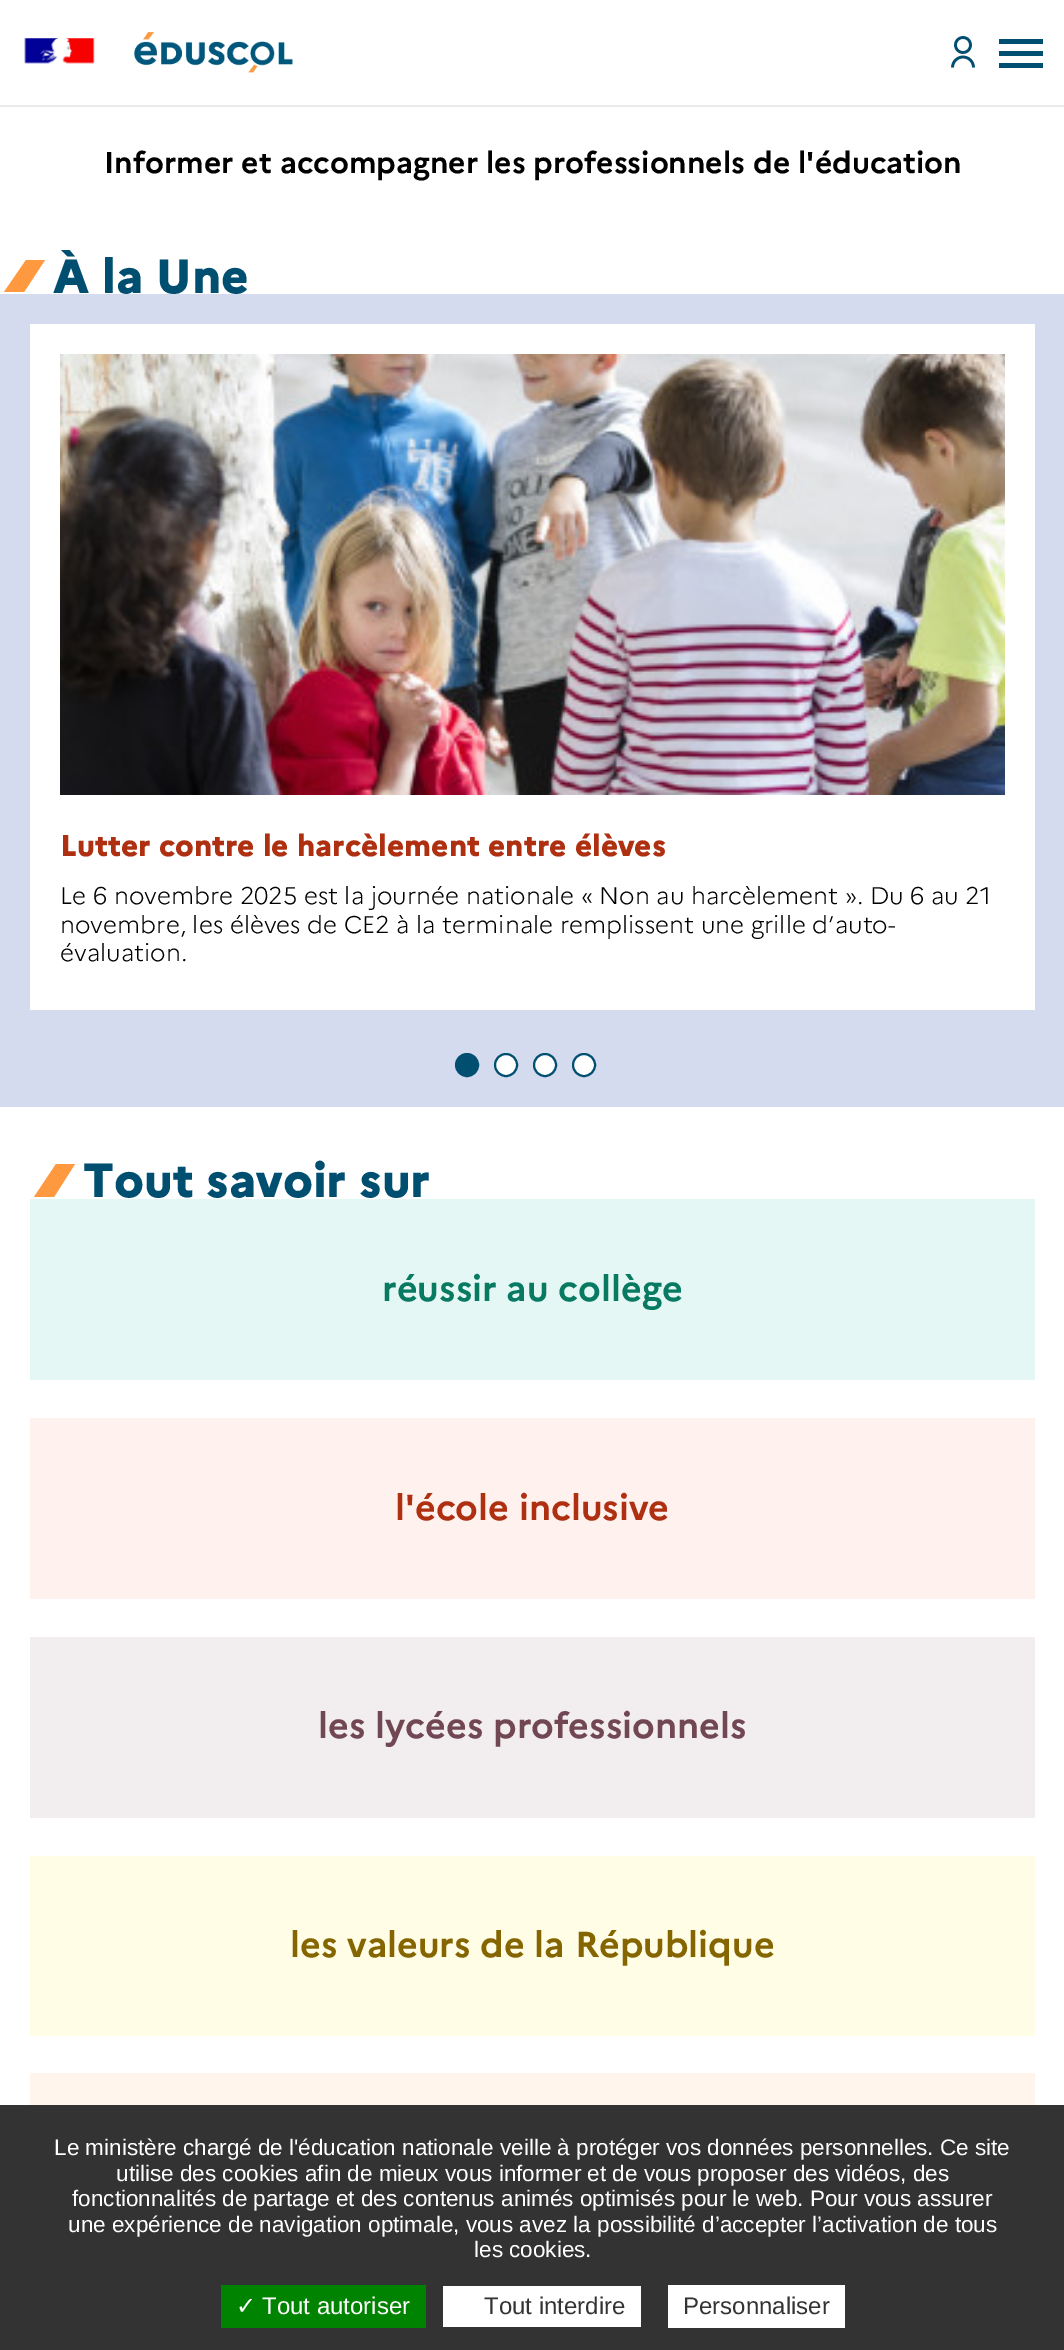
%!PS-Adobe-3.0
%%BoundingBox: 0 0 1064 2350
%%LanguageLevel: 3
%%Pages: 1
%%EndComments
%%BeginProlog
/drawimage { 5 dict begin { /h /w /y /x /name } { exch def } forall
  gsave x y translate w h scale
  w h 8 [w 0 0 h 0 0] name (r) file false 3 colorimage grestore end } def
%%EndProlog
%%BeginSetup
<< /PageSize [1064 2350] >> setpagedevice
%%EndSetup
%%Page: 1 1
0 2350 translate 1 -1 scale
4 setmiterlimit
1 setgray
0 0 1064 2350 rectfill
0.918 setgray
0 105 1064 2 rectfill
(images/1.raw) 24 38 71 26 drawimage
(images/2.raw) 134 31 159 42 drawimage
(images/3.raw) 951 36 24 32 drawimage
0 0.306 0.439 setrgbcolor
999 51 44 5 rectfill
999 39 44 5 rectfill
999 63 44 5 rectfill
1 0.6 0.251 setrgbcolor
newpath 26 260 moveto 45 260 lineto 24 292 lineto 4 292 lineto closepath fill
0.835 0.859 0.937 setrgbcolor
0 294 1064 813 rectfill
1 setgray
30 324 1005 686 rectfill
(images/4.raw) 60 354 945 441 drawimage
0 0.306 0.439 setrgbcolor
newpath 467 1065 11 0 360 arc closepath gsave fill grestore
2 setlinewidth
stroke
1 setgray
newpath 506 1065 11 0 360 arc closepath gsave fill grestore
0 0.306 0.439 setrgbcolor
stroke
1 setgray
newpath 545 1065 11 0 360 arc closepath gsave fill grestore
0 0.306 0.439 setrgbcolor
stroke
1 setgray
newpath 584 1065 11 0 360 arc closepath gsave fill grestore
0 0.306 0.439 setrgbcolor
stroke
1 0.6 0.251 setrgbcolor
newpath 56 1164 moveto 75 1164 lineto 54 1197 lineto 34 1197 lineto closepath fill
0.898 0.969 0.957 setrgbcolor
30 1199 1005 181 rectfill
1 0.945 0.929 setrgbcolor
30 1418 1005 181 rectfill
0.949 0.929 0.937 setrgbcolor
30 1637 1005 181 rectfill
1 0.992 0.898 setrgbcolor
30 1856 1005 180 rectfill
1 0.961 0.925 setrgbcolor
30 2073 1005 32 rectfill
0.2 setgray
0 2105 1064 245 rectfill
0 0.514 0 setrgbcolor
221 2285 205 43 rectfill
1 setgray
443 2286 198 41 rectfill
668 2285 177 43 rectfill
/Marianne-Bold [30 0 0 -30 0 0] selectfont
0 setgray
104 173 moveto (Informer et accompagner les professionnels de l'éducation) show
/Marianne-ExtraBold [48 0 0 -48 0 0] selectfont
0 0.306 0.439 setrgbcolor
53 293 moveto (À la Une) show
/Marianne-ExtraBold [30 0 0 -30 0 0] selectfont
0.686 0.184 0.067 setrgbcolor
60 856 moveto (Lutter contre le harcèlement entre élèves) show
/Marianne-Light [24 0 0 -24 0 0] selectfont
0 setgray
60 904 moveto (Le 6 novembre 2025 est la journée nationale « Non au harcèlement ». Du 6 au 21) show
60 933 moveto (novembre, les élèves de CE2 à la terminale remplissent une grille d’auto-) show
60 961 moveto (évaluation.) show
/Marianne-ExtraBold [48 0 0 -48 0 0] selectfont
0 0.306 0.439 setrgbcolor
83 1197 moveto (Tout savoir sur) show
/Marianne-Bold [36 0 0 -36 0 0] selectfont
0.031 0.478 0.384 setrgbcolor
382 1301 moveto (réussir au collège) show
0.686 0.184 0.067 setrgbcolor
395 1520 moveto (l'école inclusive) show
0.443 0.278 0.325 setrgbcolor
318 1738 moveto (les lycées professionnels) show
0.518 0.396 0 setrgbcolor
290 1957 moveto (les valeurs de la République) show
/LiberationSans-Regular [22.5 0 0 -22.5 0 0] selectfont
1 setgray
54 2155 moveto (Le ministère chargé de l'éducation nationale veille à protéger vos données personnelles. Ce site) show
116 2181 moveto (utilise des cookies afin de mieux vous informer et de vous proposer des vidéos, des) show
72 2206 moveto (fonctionnalités de partage et des contenus animés optimisés pour le web. Pour vous assurer) show
68 2232 moveto (une expérience de navigation optimale, vous avez la possibilité d’accepter l’activation de tous) show
474 2257 moveto (les cookies.) show
/DejaVuSans-Regular [24 0 0 -24 0 0] selectfont
236 2314 moveto (✓) show
/LiberationSans-Regular [24 0 0 -24 0 0] selectfont
262 2314 moveto (Tout autoriser) show
0.2 setgray
484 2314 moveto (Tout interdire) show
683 2314 moveto (Personnaliser) show
showpage
%%EOF
